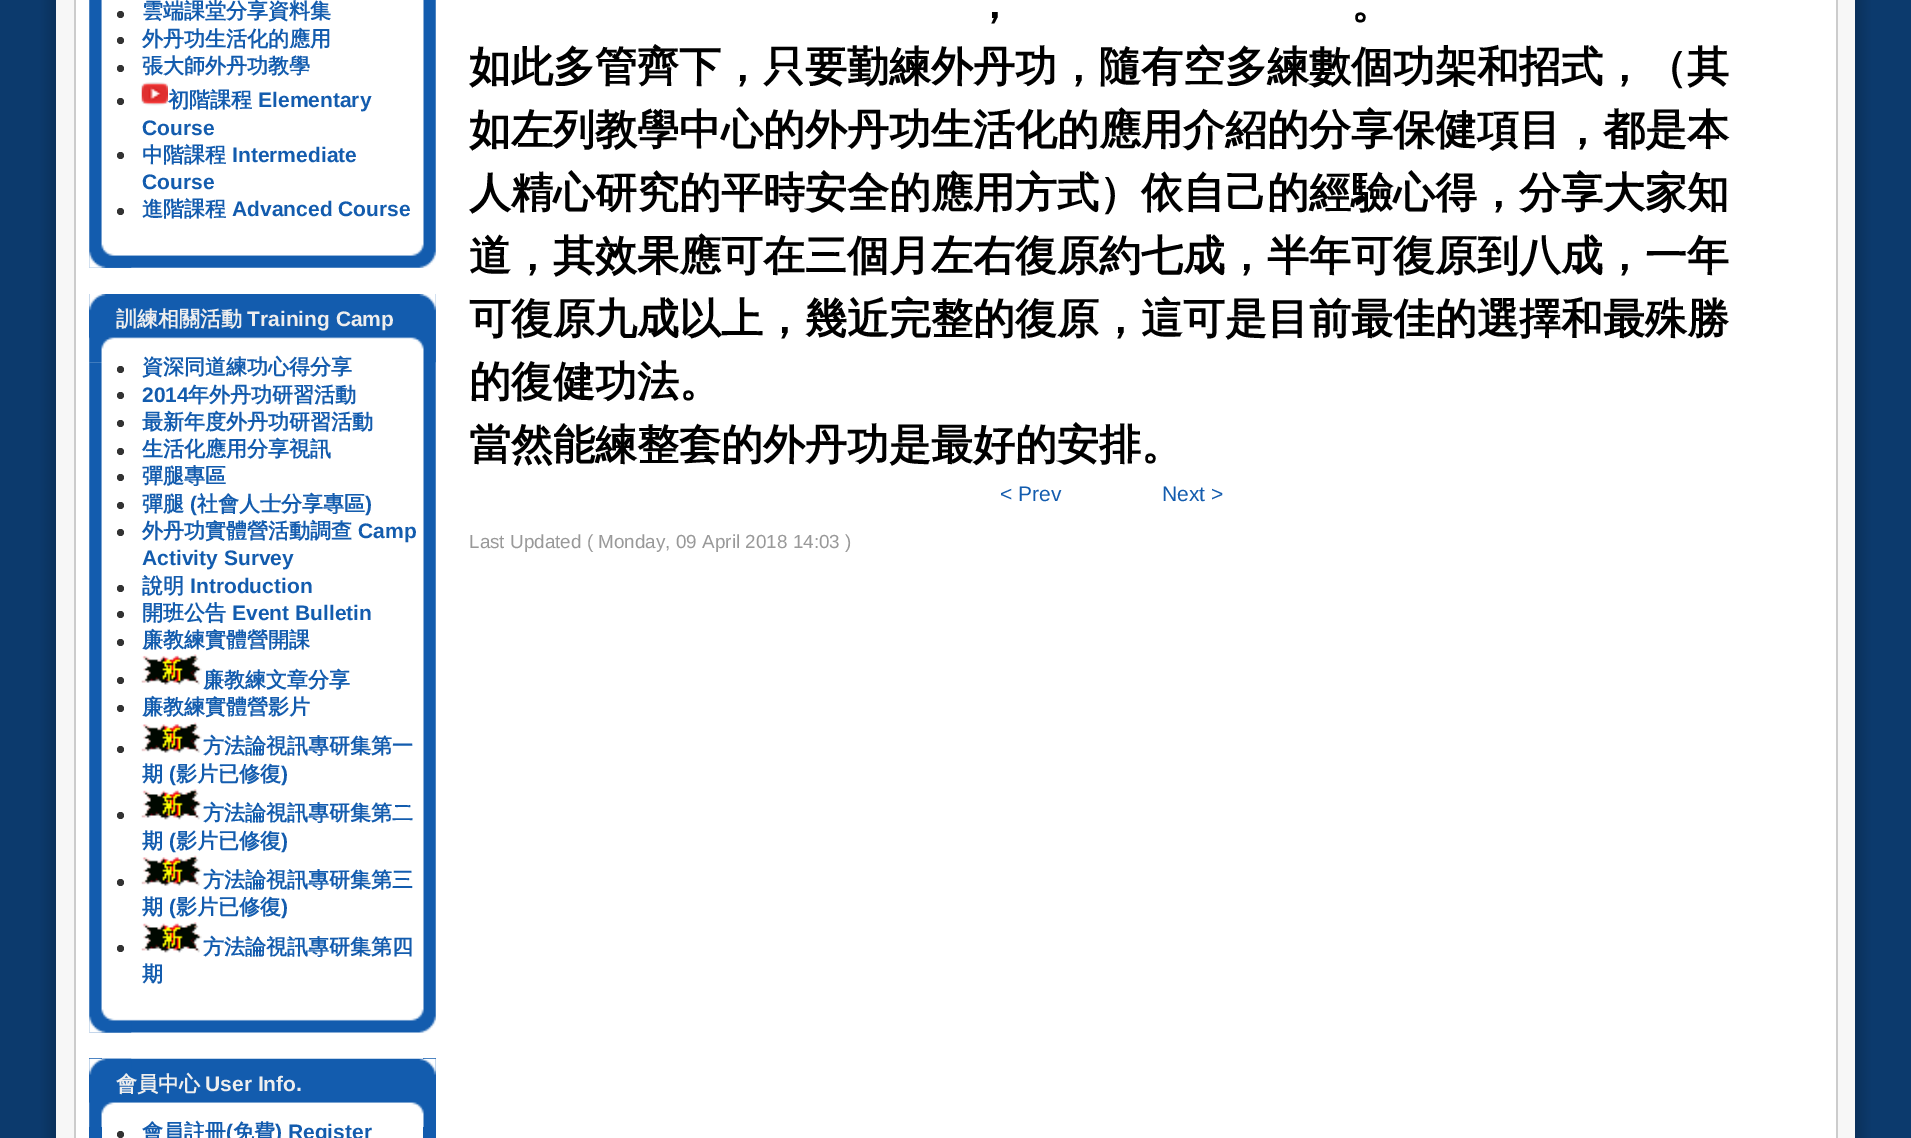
%!PS-Adobe-3.0
%%BoundingBox: 0 0 1911 1138
%%LanguageLevel: 3
%%Pages: 1
%%EndComments
%%BeginProlog
/drawimage { 5 dict begin { /h /w /y /x /name } { exch def } forall
  gsave x y translate w h scale
  w h 8 [w 0 0 h 0 0] name (r) file false 3 colorimage grestore end } def
%%EndProlog
%%BeginSetup
<< /PageSize [1911 1138] >> setpagedevice
%%EndSetup
%%Page: 1 1
0 1138 translate 1 -1 scale
4 setmiterlimit
0.047 0.227 0.427 setrgbcolor
0 0 1911 1138 rectfill
0.969 setgray
56 0 1799 1138 rectfill
(images/1.raw) 37 0 19 1138 drawimage
(images/2.raw) 1855 0 19 1138 drawimage
1 setgray
76 0 1760 1138 rectfill
0.8 setgray
1836 0 2 1138 rectfill
74 0 2 1138 rectfill
(images/3.raw) 89 0 347 268 drawimage
(images/4.raw) 89 0 43 268 drawimage
0.2 setgray
newpath 120.5 14.5 3.5 0 360 arc closepath fill
newpath 120.5 40.5 3.5 0 360 arc closepath fill
newpath 120.5 68.5 3.5 0 360 arc closepath fill
newpath 120.5 101.5 3.5 0 360 arc closepath fill
(images/5.raw) 141 82 27 24 drawimage
newpath 120.5 155.5 3.5 0 360 arc closepath fill
newpath 120.5 211.5 3.5 0 360 arc closepath fill
(images/6.raw) 89 294 347 739 drawimage
(images/7.raw) 89 294 43 739 drawimage
(images/8.raw) 89 294 347 69 drawimage
(images/9.raw) 89 294 25 69 drawimage
newpath 120.5 369.5 3.5 0 360 arc closepath fill
newpath 120.5 395.5 3.5 0 360 arc closepath fill
newpath 120.5 423.5 3.5 0 360 arc closepath fill
newpath 120.5 451.5 3.5 0 360 arc closepath fill
newpath 120.5 477.5 3.5 0 360 arc closepath fill
newpath 120.5 505.5 3.5 0 360 arc closepath fill
newpath 120.5 532.5 3.5 0 360 arc closepath fill
newpath 120.5 588.5 3.5 0 360 arc closepath fill
newpath 120.5 614.5 3.5 0 360 arc closepath fill
newpath 120.5 642.5 3.5 0 360 arc closepath fill
newpath 120.5 680.5 3.5 0 360 arc closepath fill
(images/10.raw) 141 654 61 31 drawimage
newpath 120.5 708.5 3.5 0 360 arc closepath fill
newpath 120.5 749.5 3.5 0 360 arc closepath fill
(images/11.raw) 141 722 61 31 drawimage
newpath 120.5 815.5 3.5 0 360 arc closepath fill
(images/12.raw) 141 789 61 31 drawimage
newpath 120.5 882.5 3.5 0 360 arc closepath fill
(images/11.raw) 141 855 61 31 drawimage
newpath 120.5 948.5 3.5 0 360 arc closepath fill
(images/12.raw) 141 922 61 31 drawimage
0.075 0.361 0.682 setrgbcolor
423 1058 13 80 rectfill
89 1058 13 80 rectfill
(images/13.raw) 89 1058 347 69 drawimage
(images/14.raw) 89 1058 43 69 drawimage
0.2 setgray
newpath 120.5 1134.5 3.5 0 360 arc closepath fill
/WenQuanYiZenHei-Bold [21 0 0 -21 0 0] selectfont
0.075 0.361 0.682 setrgbcolor
142 18 moveto (雲端課堂分享資料集) show
142 46 moveto (外丹功生活化的應用) show
142 73 moveto (張大師外丹功教學) show
168 107 moveto (初階課程) show
/LiberationSans-Bold [21 0 0 -21 0 0] selectfont
258 107 moveto (Elementary) show
142 135 moveto (Course) show
/WenQuanYiZenHei-Bold [21 0 0 -21 0 0] selectfont
142 162 moveto (中階課程) show
/LiberationSans-Bold [21 0 0 -21 0 0] selectfont
232 162 moveto (Intermediate) show
142 189 moveto (Course) show
/WenQuanYiZenHei-Bold [21 0 0 -21 0 0] selectfont
142 216 moveto (進階課程) show
/LiberationSans-Bold [21 0 0 -21 0 0] selectfont
232 216 moveto (Advanced Course) show
/WenQuanYiZenHei-Bold [21 0 0 -21 0 0] selectfont
0.933 setgray
116 326 moveto (訓練相關活動) show
/LiberationSans-Bold [21 0 0 -21 0 0] selectfont
247 326 moveto (Training Camp) show
/WenQuanYiZenHei-Bold [21 0 0 -21 0 0] selectfont
0.075 0.361 0.682 setrgbcolor
142 374 moveto (資深同道練功心得分享) show
/LiberationSans-Bold [21 0 0 -21 0 0] selectfont
142 402 moveto (2014) show
/WenQuanYiZenHei-Bold [21 0 0 -21 0 0] selectfont
188 402 moveto (年外丹功研習活動) show
142 429 moveto (最新年度外丹功研習活動) show
142 456 moveto (生活化應用分享視訊) show
142 483 moveto (彈腿專區) show
142 511 moveto (彈腿) show
/LiberationSans-Bold [21 0 0 -21 0 0] selectfont
190 511 moveto (\() show
/WenQuanYiZenHei-Bold [21 0 0 -21 0 0] selectfont
197 511 moveto (社會人士分享專區) show
/LiberationSans-Bold [21 0 0 -21 0 0] selectfont
365 511 moveto (\)) show
/WenQuanYiZenHei-Bold [21 0 0 -21 0 0] selectfont
142 538 moveto (外丹功實體營活動調查) show
/LiberationSans-Bold [21 0 0 -21 0 0] selectfont
358 538 moveto (Camp) show
142 565 moveto (Activity Survey) show
/WenQuanYiZenHei-Bold [21 0 0 -21 0 0] selectfont
142 593 moveto (說明) show
/LiberationSans-Bold [21 0 0 -21 0 0] selectfont
190 593 moveto (Introduction) show
/WenQuanYiZenHei-Bold [21 0 0 -21 0 0] selectfont
142 620 moveto (開班公告) show
/LiberationSans-Bold [21 0 0 -21 0 0] selectfont
232 620 moveto (Event Bulletin) show
/WenQuanYiZenHei-Bold [21 0 0 -21 0 0] selectfont
142 647 moveto (廉教練實體營開課) show
203 687 moveto (廉教練文章分享) show
142 714 moveto (廉教練實體營影片) show
203 753 moveto (方法論視訊專研集第一) show
142 781 moveto (期) show
/LiberationSans-Bold [21 0 0 -21 0 0] selectfont
169 781 moveto (\() show
/WenQuanYiZenHei-Bold [21 0 0 -21 0 0] selectfont
176 781 moveto (影片已修復) show
/LiberationSans-Bold [21 0 0 -21 0 0] selectfont
281 781 moveto (\)) show
/WenQuanYiZenHei-Bold [21 0 0 -21 0 0] selectfont
203 820 moveto (方法論視訊專研集第二) show
142 848 moveto (期) show
/LiberationSans-Bold [21 0 0 -21 0 0] selectfont
169 848 moveto (\() show
/WenQuanYiZenHei-Bold [21 0 0 -21 0 0] selectfont
176 848 moveto (影片已修復) show
/LiberationSans-Bold [21 0 0 -21 0 0] selectfont
281 848 moveto (\)) show
/WenQuanYiZenHei-Bold [21 0 0 -21 0 0] selectfont
203 887 moveto (方法論視訊專研集第三) show
142 914 moveto (期) show
/LiberationSans-Bold [21 0 0 -21 0 0] selectfont
169 914 moveto (\() show
/WenQuanYiZenHei-Bold [21 0 0 -21 0 0] selectfont
176 914 moveto (影片已修復) show
/LiberationSans-Bold [21 0 0 -21 0 0] selectfont
281 914 moveto (\)) show
/WenQuanYiZenHei-Bold [21 0 0 -21 0 0] selectfont
203 954 moveto (方法論視訊專研集第四) show
142 981 moveto (期) show
0.933 setgray
116 1091 moveto (會員中心) show
/LiberationSans-Bold [21 0 0 -21 0 0] selectfont
205 1091 moveto (User Info.) show
/WenQuanYiZenHei-Bold [21 0 0 -21 0 0] selectfont
0.075 0.361 0.682 setrgbcolor
142 1139 moveto (會員註冊) show
/LiberationSans-Bold [21 0 0 -21 0 0] selectfont
226 1139 moveto (\() show
/WenQuanYiZenHei-Bold [21 0 0 -21 0 0] selectfont
233 1139 moveto (免費) show
/LiberationSans-Bold [21 0 0 -21 0 0] selectfont
275 1139 moveto (\) Register) show
/WenQuanYiZenHei-Bold [42 0 0 -42 0 0] selectfont
0 setgray
973 18 moveto (，) show
1351 18 moveto (。) show
469 81 moveto (如此多管齊下，只要勤練外丹功，隨有空多練數個功架和招式，（其) show
469 144 moveto (如左列教學中心的外丹功生活化的應用介紹的分享保健項目，都是本) show
469 207 moveto (人精心研究的平時安全的應用方式）依自己的經驗心得，分享大家知) show
469 270 moveto (道，其效果應可在三個月左右復原約七成，半年可復原到八成，一年) show
469 333 moveto (可復原九成以上，幾近完整的復原，這可是目前最佳的選擇和最殊勝) show
469 396 moveto (的復健功法。) show
469 459 moveto (當然能練整套的外丹功是最好的安排。) show
/LiberationSans-Regular [21 0 0 -21 0 0] selectfont
0.075 0.361 0.682 setrgbcolor
1000 501 moveto (< Prev) show
1162 501 moveto (Next >) show
/LiberationSans-Regular [18.9 0 0 -18.9 0 0] selectfont
0.6 setgray
469 548 moveto (Last Updated \( Monday, 09 April 2018 14:03 \)) show
showpage
%%EOF
